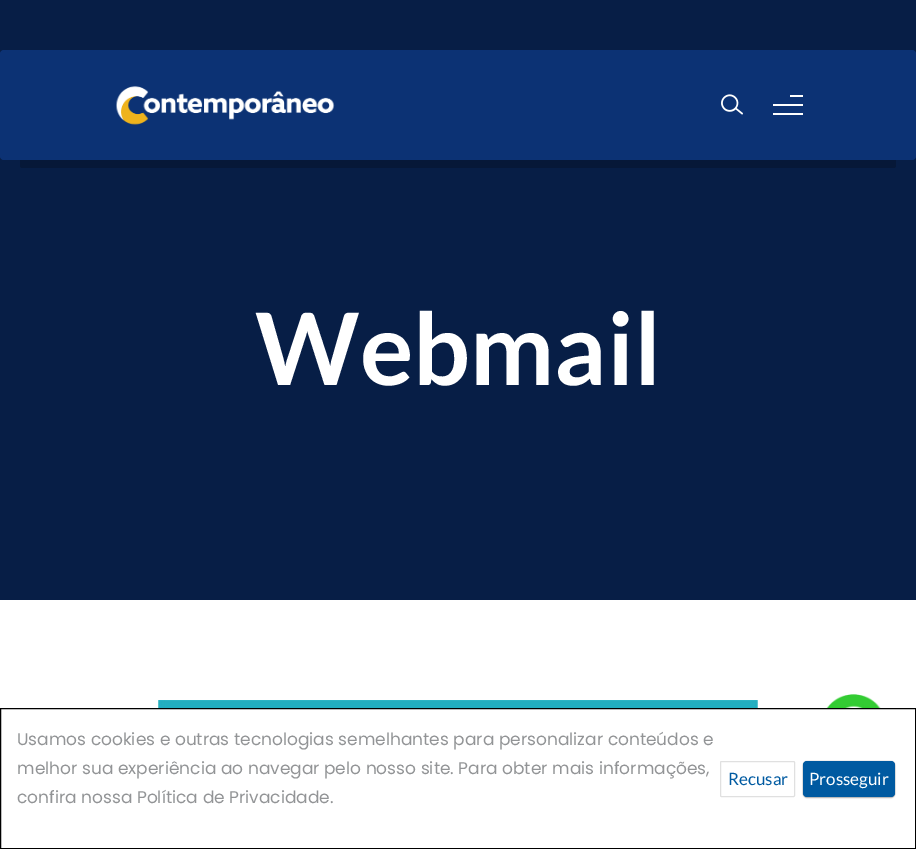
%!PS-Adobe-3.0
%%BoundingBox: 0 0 916 849
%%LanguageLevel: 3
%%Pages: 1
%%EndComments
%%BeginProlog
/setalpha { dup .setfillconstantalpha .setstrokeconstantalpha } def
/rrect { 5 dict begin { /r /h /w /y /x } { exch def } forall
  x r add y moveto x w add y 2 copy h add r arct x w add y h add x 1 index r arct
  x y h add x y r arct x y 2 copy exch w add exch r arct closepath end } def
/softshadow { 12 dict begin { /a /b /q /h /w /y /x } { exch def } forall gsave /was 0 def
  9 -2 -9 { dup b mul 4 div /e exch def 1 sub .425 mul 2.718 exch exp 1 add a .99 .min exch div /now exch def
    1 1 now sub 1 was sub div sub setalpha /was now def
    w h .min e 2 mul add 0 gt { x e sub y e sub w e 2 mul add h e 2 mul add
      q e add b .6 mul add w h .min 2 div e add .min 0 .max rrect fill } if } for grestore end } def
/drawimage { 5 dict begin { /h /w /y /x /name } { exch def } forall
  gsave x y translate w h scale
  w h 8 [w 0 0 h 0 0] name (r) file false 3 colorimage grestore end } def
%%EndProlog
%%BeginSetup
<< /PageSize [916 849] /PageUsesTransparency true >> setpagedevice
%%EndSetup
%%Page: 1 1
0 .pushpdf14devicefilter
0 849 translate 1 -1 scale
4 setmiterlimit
1 setgray
0 0 916 849 rectfill
0.027 0.118 0.275 setrgbcolor
0 0 916 600 rectfill
0.047 0.196 0.455 setrgbcolor
0 50 916 110 4 rrect fill
(images/1.raw) 116 86 219 39 drawimage
(images/2.raw) 721 94 22 21 drawimage
1 setgray
790 95 13 2 rectfill
773 104 30 2 rectfill
773 113 30 2 rectfill
0.024 0.094 0.22 setrgbcolor
newpath 20 160 moveto 896 160 lineto 896 166 lineto 896 167 895 168 894 168 curveto 22 168 lineto 21 168 20 167 20 166 curveto closepath fill
(images/3.raw) 158 700 600 8 drawimage
(images/4.raw) 826 694 55 14 drawimage
0 setgray
0.5 708.5 915 140 rectstroke
0.878 setgray
720.5 761.5 74 35 1 rrect stroke
0 setgray
803 761 92 36 4 0.5 0.1 softshadow
803 761 92 36 4 0.5 0.12 softshadow
803 762 92 36 4 0.5 0.25 softshadow
0 0.353 0.631 setrgbcolor
803 761 92 36 4 rrect fill
/Lato-Bold [100 0 0 -100 0 0] selectfont
1 setgray
255 385 moveto (Webmail) show
/Poppins-Regular [17 0 0 -17 0 0] selectfont
0.573 0.58 0.588 setrgbcolor
17 745 moveto (Usamos cookies e outras tecnologias semelhantes para personalizar conteúdos e) show
17 774 moveto (melhor sua experiência ao navegar pelo nosso site. Para obter mais informações,) show
17 803 moveto (confira nossa Política de Privacidade.) show
/Lato-Regular [17 0 0 -17 0 0] selectfont
0 0.353 0.631 setrgbcolor
728 785 moveto (Recusar) show
1 setgray
809 785 moveto (Prosseguir) show
.poppdf14devicefilter showpage
%%EOF
